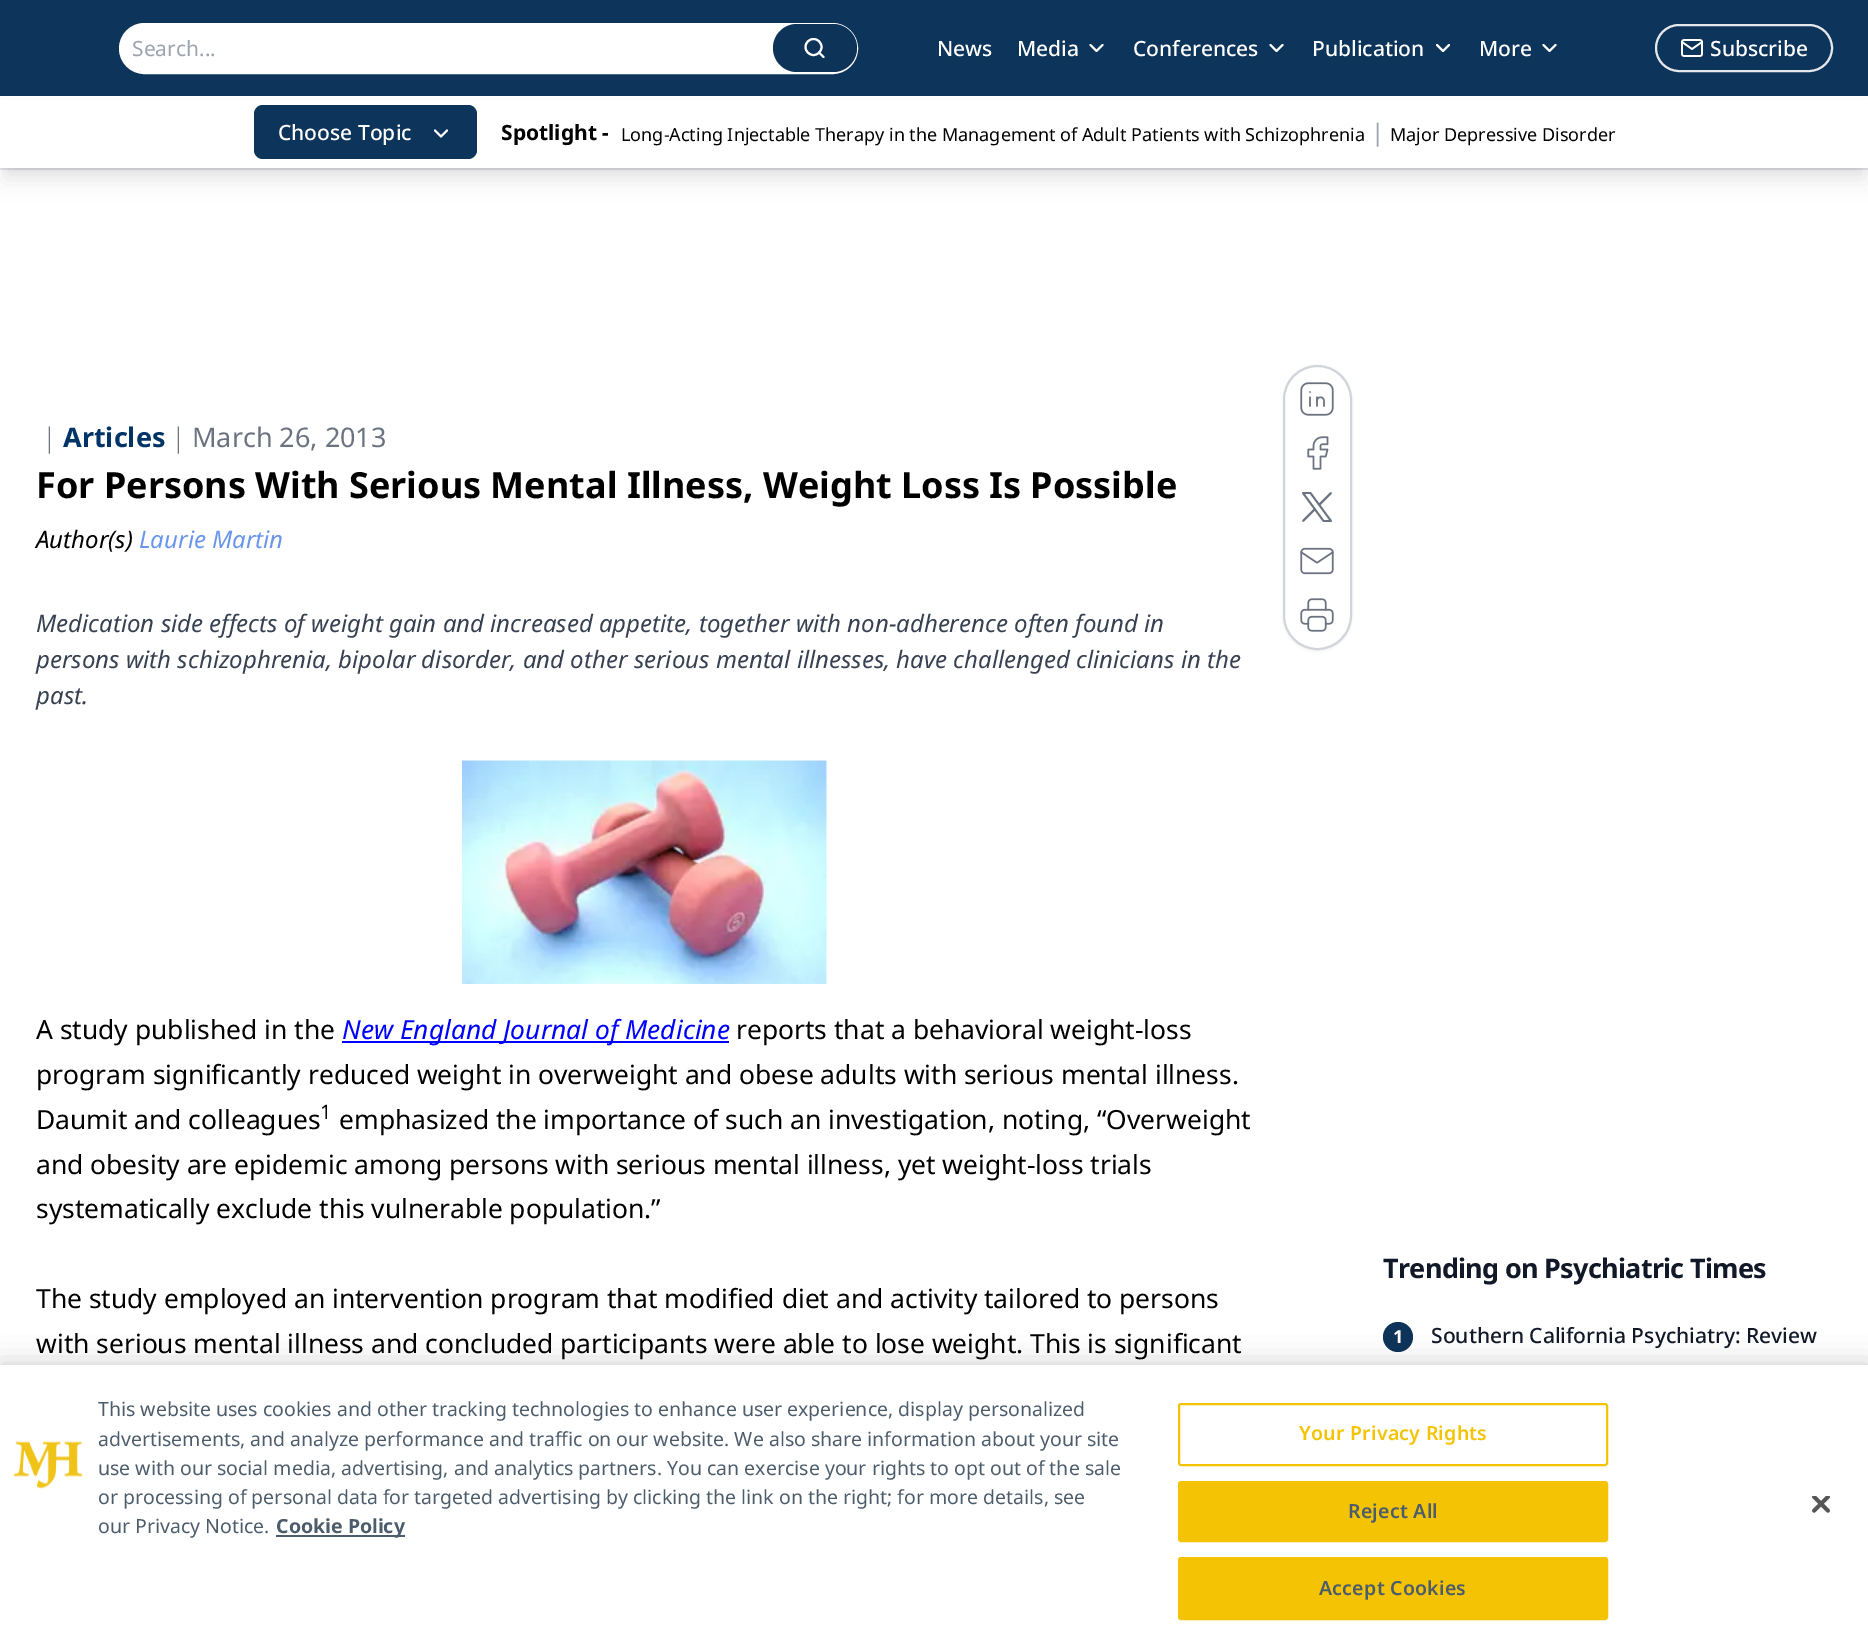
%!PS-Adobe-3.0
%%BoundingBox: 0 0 1868 1649
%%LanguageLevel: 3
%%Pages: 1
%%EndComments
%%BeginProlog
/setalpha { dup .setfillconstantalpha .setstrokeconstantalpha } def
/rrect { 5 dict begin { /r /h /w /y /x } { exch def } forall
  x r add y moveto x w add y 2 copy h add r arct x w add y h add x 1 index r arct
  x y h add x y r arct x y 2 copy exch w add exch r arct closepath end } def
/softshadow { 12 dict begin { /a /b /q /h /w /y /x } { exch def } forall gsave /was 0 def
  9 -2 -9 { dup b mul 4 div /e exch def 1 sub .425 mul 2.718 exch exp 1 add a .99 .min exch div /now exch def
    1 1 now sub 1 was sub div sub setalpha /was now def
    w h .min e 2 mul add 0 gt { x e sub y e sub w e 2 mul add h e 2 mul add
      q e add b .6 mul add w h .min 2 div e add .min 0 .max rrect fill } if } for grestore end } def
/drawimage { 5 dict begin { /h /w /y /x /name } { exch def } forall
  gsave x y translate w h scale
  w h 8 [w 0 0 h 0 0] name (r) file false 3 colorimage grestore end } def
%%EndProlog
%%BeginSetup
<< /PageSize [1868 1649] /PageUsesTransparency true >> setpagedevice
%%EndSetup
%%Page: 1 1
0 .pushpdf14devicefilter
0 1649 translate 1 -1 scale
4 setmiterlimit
1 setgray
0 0 1868 1649 rectfill
0.051 0.204 0.353 setrgbcolor
0 0 1868 96 rectfill
0.898 0.906 0.922 setrgbcolor
0 168 1868 2 rectfill
1 setgray
2 setlinewidth
120 24 737 49 24.5 rrect stroke
120 24 737 48 24 rrect fill
0.051 0.2 0.349 setrgbcolor
773 24 84 48 24 rrect fill
1 setgray
newpath 813.5 47 8 0 360 arc closepath stroke
1 setlinecap
1 setlinejoin
newpath 823.5 57 moveto 819 52.5 lineto stroke
newpath 1090.5 45 moveto 1096.5 51 lineto 1102.5 45 lineto stroke
newpath 1270.5 45 moveto 1276.5 51 lineto 1282.5 45 lineto stroke
newpath 1437 45 moveto 1443 51 lineto 1449 45 lineto stroke
newpath 1543.5 45 moveto 1549.5 51 lineto 1555.5 45 lineto stroke
0.898 0.906 0.922 setrgbcolor
0 setlinecap
0 setlinejoin
1656 25 176 46 23 rrect stroke
(images/1.raw) 1681 39 22 18 drawimage
0 setgray
6 108 1857 60 0 4.5 0.1 softshadow
5 116 1860 63 0 11 0.1 softshadow
1 setgray
0 100 1868 68 rectfill
0.051 0.204 0.353 setrgbcolor
254 105 223 54 9 rrect fill
1 setgray
1 setlinecap
1 setlinejoin
newpath 435 130.5 moveto 441 136.5 lineto 447 130.5 lineto stroke
(images/2.raw) 462 760 365 224 drawimage
0 0 1 setrgbcolor
342 1041 387 2 rectfill
0 setgray
1283 366 69 285 34.5 1.5 0.05 softshadow
1 setgray
1284 366 67 283 33.5 rrect gsave fill grestore
0.82 0.835 0.859 setrgbcolor
0 setlinecap
0 setlinejoin
stroke
(images/3.raw) 1300 382 34 34 drawimage
(images/4.raw) 1307 436 22 34 drawimage
0.42 0.447 0.502 setrgbcolor
1.8 setlinewidth
1 setlinecap
1 setlinejoin
newpath 1303 493 moveto 1323.5 521 lineto 1331 521 lineto 1310.5 493 lineto closepath 1303 521 moveto 1315 509 lineto 1319 505 moveto 1331 493 lineto stroke
(images/5.raw) 1300 547 34 28 drawimage
(images/6.raw) 1300 598 34 34 drawimage
0.051 0.2 0.349 setrgbcolor
newpath 1398 1337 15 0 360 arc closepath fill
0 setgray
0 1365 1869 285 0 13.5 0.2 softshadow
1 setgray
0 1365 1868 284 rectfill
(images/7.raw) 13 1441 70 48 drawimage
0.298 0.361 0.42 setrgbcolor
276 1535 129 2 rectfill
0.957 0.769 0.016 setrgbcolor
2 setlinewidth
0 setlinecap
0 setlinejoin
1179 1404 428 61 2 rrect stroke
1179 1482 428 59 2 rrect gsave fill grestore
stroke
1179 1558 428 61 2 rrect gsave fill grestore
stroke
(images/8.raw) 1812 1496 18 17 drawimage
/NotoSans-Regular [21 0 0 -21 0 0] selectfont
0.612 0.639 0.686 setrgbcolor
132 56 moveto (Search...) show
/NotoSans-Medium [21 0 0 -21 0 0] selectfont
1 setgray
937 56 moveto (News) show
1017 56 moveto (Media) show
1133 56 moveto (Conferences) show
1312 56 moveto (Publication) show
1479 56 moveto (More) show
1710 56 moveto (Subscribe) show
278 140 moveto (Choose Topic) show
/NotoSans-Bold [21 0 0 -21 0 0] selectfont
0 setgray
501 140 moveto (Spotlight -) show
/NotoSans-Regular [18 0 0 -18 0 0] selectfont
621 141 moveto (Long-Acting Injectable Therapy in the Management of Adult Patients with Schizophrenia) show
/NotoSans-Regular [24 0 0 -24 0 0] selectfont
0.612 0.639 0.686 setrgbcolor
1371 141 moveto (|) show
/NotoSans-Regular [18 0 0 -18 0 0] selectfont
0 setgray
1390 141 moveto (Major Depressive Disorder) show
/NotoSans-Light [27 0 0 -27 0 0] selectfont
0.42 0.447 0.502 setrgbcolor
42 447 moveto (|) show
/NotoSans-Bold [27 0 0 -27 0 0] selectfont
0 0.2 0.4 setrgbcolor
63 447 moveto (Articles) show
/NotoSans-Light [27 0 0 -27 0 0] selectfont
0.42 0.447 0.502 setrgbcolor
171 447 moveto (|) show
/NotoSans-Regular [27 0 0 -27 0 0] selectfont
192 447 moveto (March 26, 2013) show
/NotoSans-Bold [36 0 0 -36 0 0] selectfont
0 setgray
36 498 moveto (For Persons With Serious Mental Illness, Weight Loss Is Possible) show
/NotoSans-Italic [24 0 0 -24 0 0] selectfont
36 548 moveto (Author\(s\)) show
0.416 0.584 0.925 setrgbcolor
139 548 moveto (Laurie Martin) show
0.216 0.255 0.318 setrgbcolor
36 632 moveto (Medication side effects of weight gain and increased appetite, together with non-adherence often found in) show
36 668 moveto (persons with schizophrenia, bipolar disorder, and other serious mental illnesses, have challenged clinicians in the) show
36 704 moveto (past.) show
/NotoSans-Regular [26.4 0 0 -26.4 0 0] selectfont
0 setgray
36 1039 moveto (A study published in the) show
/NotoSans-Italic [26.4 0 0 -26.4 0 0] selectfont
0 0 1 setrgbcolor
342 1039 moveto (New England Journal of Medicine) show
/NotoSans-Regular [26.4 0 0 -26.4 0 0] selectfont
0 setgray
736 1039 moveto (reports that a behavioral weight-loss) show
36 1084 moveto (program significantly reduced weight in overweight and obese adults with serious mental illness.) show
36 1129 moveto (Daumit and colleagues) show
/NotoSans-Regular [20 0 0 -20 0 0] selectfont
320 1119 moveto (1) show
/NotoSans-Regular [26.4 0 0 -26.4 0 0] selectfont
339 1129 moveto (emphasized the importance of such an investigation, noting, “Overweight) show
36 1174 moveto (and obesity are epidemic among persons with serious mental illness, yet weight-loss trials) show
36 1218 moveto (systematically exclude this vulnerable population.”) show
36 1308 moveto (The study employed an intervention program that modified diet and activity tailored to persons) show
36 1353 moveto (with serious mental illness and concluded participants were able to lose weight. This is significant) show
/NotoSans-Bold [27 0 0 -27 0 0] selectfont
0.067 0.094 0.153 setrgbcolor
1383 1278 moveto -0.7 0 (Trending on Psychiatric Times) ashow
/NotoSans-Bold [18 0 0 -18 0 0] selectfont
1 setgray
1393 1343 moveto (1) show
/NotoSans-Medium [21 0 0 -21 0 0] selectfont
0.067 0.094 0.153 setrgbcolor
1431 1343 moveto (Southern California Psychiatry: Review) show
/NotoSans-Regular [19.5 0 0 -19.5 0 0] selectfont
0.298 0.361 0.42 setrgbcolor
98 1416 moveto (This website uses cookies and other tracking technologies to enhance user experience, display personalized) show
98 1446 moveto (advertisements, and analyze performance and traffic on our website. We also share information about your site) show
98 1475 moveto (use with our social media, advertising, and analytics partners. You can exercise your rights to opt out of the sale) show
98 1504 moveto (or processing of personal data for targeted advertising by clicking the link on the right; for more details, see) show
98 1533 moveto (our Privacy Notice.) show
/NotoSans-Bold [19.5 0 0 -19.5 0 0] selectfont
276 1533 moveto (Cookie Policy) show
/NotoSans-SemiBold [19.5 0 0 -19.5 0 0] selectfont
0.957 0.769 0.016 setrgbcolor
1299 1440 moveto 0.25 0 (Your Privacy Rights) ashow
0.298 0.361 0.42 setrgbcolor
1348 1518 moveto 0.25 0 (Reject All) ashow
1319 1595 moveto 0.25 0 (Accept Cookies) ashow
.poppdf14devicefilter showpage
%%EOF
